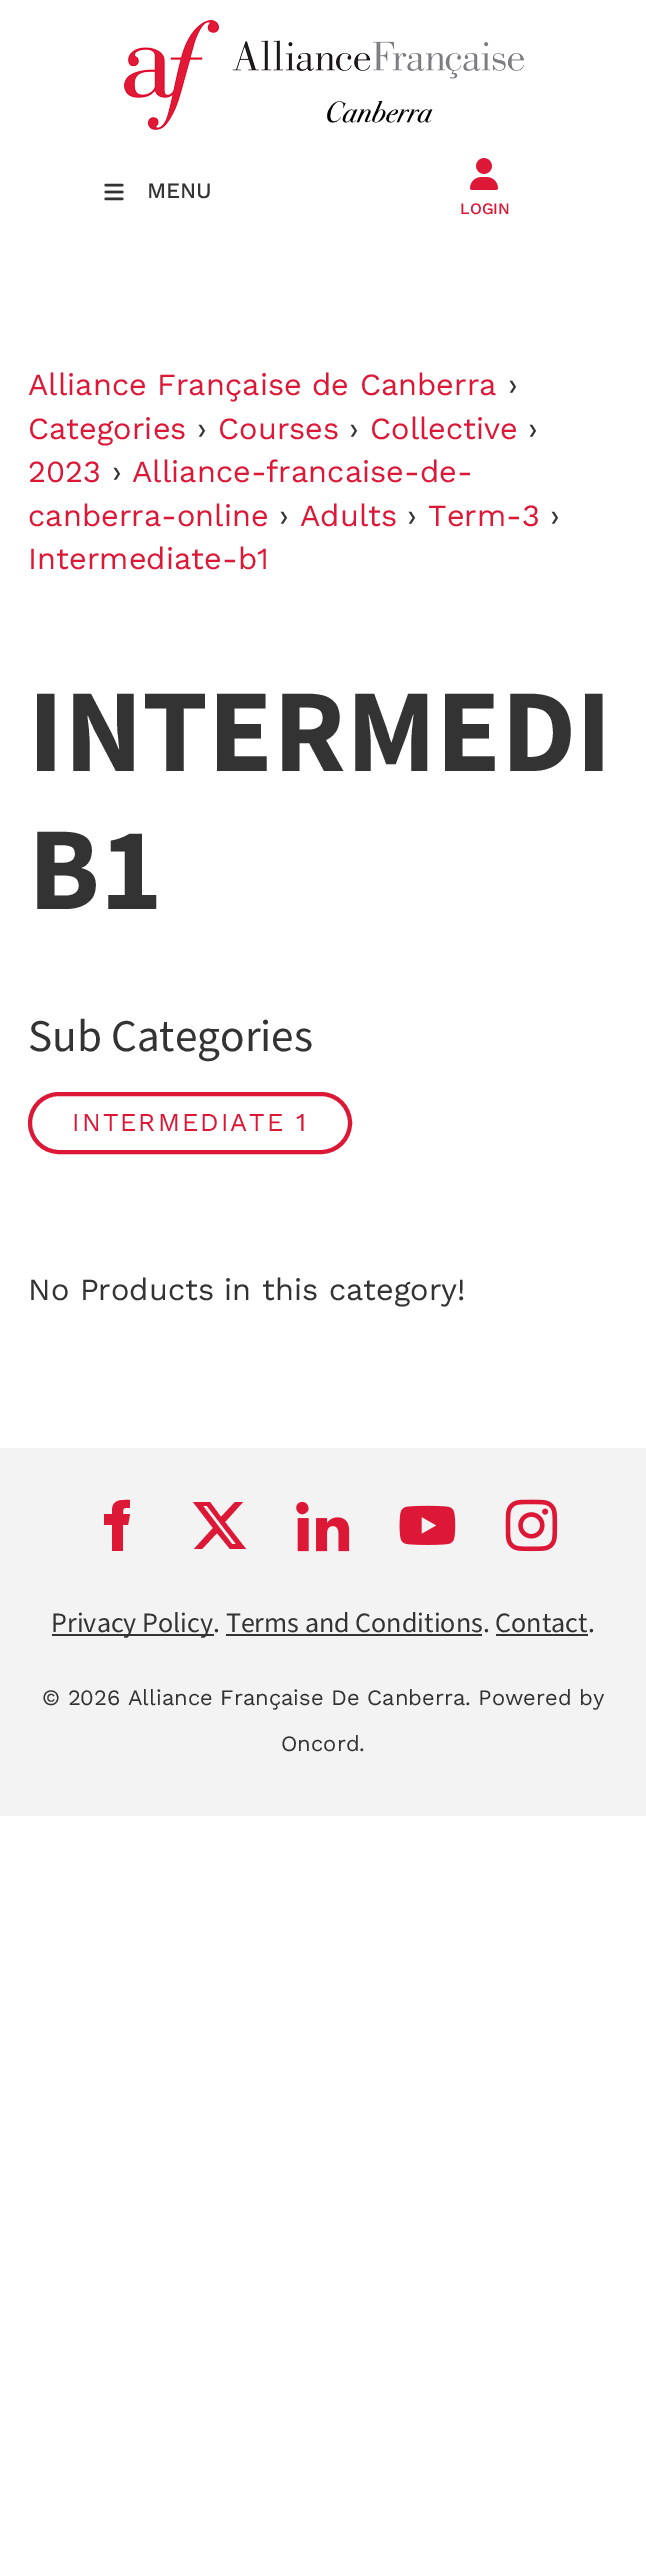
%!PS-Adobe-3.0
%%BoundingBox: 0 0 646 2574
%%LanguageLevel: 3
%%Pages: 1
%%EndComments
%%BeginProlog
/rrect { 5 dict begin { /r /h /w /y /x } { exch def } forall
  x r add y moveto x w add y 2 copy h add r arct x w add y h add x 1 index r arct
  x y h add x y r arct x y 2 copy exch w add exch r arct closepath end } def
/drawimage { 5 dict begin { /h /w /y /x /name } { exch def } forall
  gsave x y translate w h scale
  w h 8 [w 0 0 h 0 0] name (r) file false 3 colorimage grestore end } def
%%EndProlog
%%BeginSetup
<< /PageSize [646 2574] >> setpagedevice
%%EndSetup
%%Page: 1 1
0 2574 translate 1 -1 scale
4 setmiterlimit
1 setgray
0 0 646 2574 rectfill
(images/1.raw) 124 20 400 110 drawimage
(images/2.raw) 104 183 20 18 drawimage
(images/3.raw) 470 158 28 32 drawimage
0.863 0.094 0.212 setrgbcolor
4 setlinewidth
30 1094 320 58 29 rrect stroke
0.953 setgray
0 1448 646 368 rectfill
0.863 0.094 0.212 setrgbcolor
newpath 112 1514 moveto 104 1514 lineto 104 1525 lineto 112 1525 lineto 112 1551 lineto 123 1551 lineto 123 1525 lineto 128 1525 lineto 130 1514 lineto 123 1514 lineto 123 1507 123 1508 130 1508 curveto 130 1500 lineto 121 1500 112 1499 112 1511 curveto closepath fill
newpath 235 1502 moveto 243 1502 lineto 225 1522 lineto 246 1549 lineto 230 1549 lineto 217 1533 lineto 202 1549 lineto 194 1549 lineto 213 1528 lineto 193 1502 lineto 210 1502 lineto 221 1517 lineto closepath 232 1544 moveto 236 1544 lineto 207 1506 lineto 203 1506 lineto closepath fill
(images/4.raw) 296 1501 54 51 drawimage
(images/5.raw) 399 1505 57 40 drawimage
(images/6.raw) 505 1499 53 53 drawimage
0.2 setgray
52 1634 162 2 rectfill
226 1634 256 2 rectfill
496 1634 92 2 rectfill
/WorkSans-Medium [22 0 0 -22 0 0] selectfont
147 198 moveto (MENU) show
/WorkSans-Medium [16 0 0 -16 0 0] selectfont
0.863 0.094 0.212 setrgbcolor
460 214 moveto (LOGIN) show
/WorkSans-Regular [30.75 0 0 -30.75 0 0] selectfont
28 395 moveto (Alliance Française de Canberra) show
0.2 setgray
508 395 moveto (›) show
0.863 0.094 0.212 setrgbcolor
28 439 moveto (Categories) show
0.2 setgray
197 439 moveto (›) show
0.863 0.094 0.212 setrgbcolor
218 439 moveto (Courses) show
0.2 setgray
349 439 moveto (›) show
0.863 0.094 0.212 setrgbcolor
370 439 moveto (Collective) show
0.2 setgray
528 439 moveto (›) show
0.863 0.094 0.212 setrgbcolor
28 482 moveto (2023) show
0.2 setgray
112 482 moveto (›) show
0.863 0.094 0.212 setrgbcolor
132 482 moveto (Alliance-francaise-de-) show
28 526 moveto (canberra-online) show
0.2 setgray
279 526 moveto (›) show
0.863 0.094 0.212 setrgbcolor
300 526 moveto (Adults) show
0.2 setgray
407 526 moveto (›) show
0.863 0.094 0.212 setrgbcolor
428 526 moveto (Term-3) show
0.2 setgray
550 526 moveto (›) show
0.863 0.094 0.212 setrgbcolor
28 569 moveto (Intermediate-b1) show
/Mada-Bold [118.5 0 0 -118.5 0 0] selectfont
0.2 setgray
28 771 moveto (INTERMEDI) show
28 909 moveto (B1) show
/Mada-Regular [45.25 0 0 -45.25 0 0] selectfont
28 1051 moveto (Sub Categories) show
/WorkSans-Regular [25.75 0 0 -25.75 0 0] selectfont
0.863 0.094 0.212 setrgbcolor
72 1131 moveto 2 0 (INTERMEDIATE 1) ashow
/WorkSans-Regular [30.75 0 0 -30.75 0 0] selectfont
0.2 setgray
28 1300 moveto (No Products in this category!) show
/Mada-Regular [28 0 0 -28 0 0] selectfont
51 1632 moveto (Privacy Policy. Terms and Conditions. Contact.) show
/WorkSans-Regular [22 0 0 -22 0 0] selectfont
42 1705 moveto (© 2026 Alliance Française De Canberra. Powered by) show
281 1751 moveto (Oncord.) show
showpage
%%EOF
